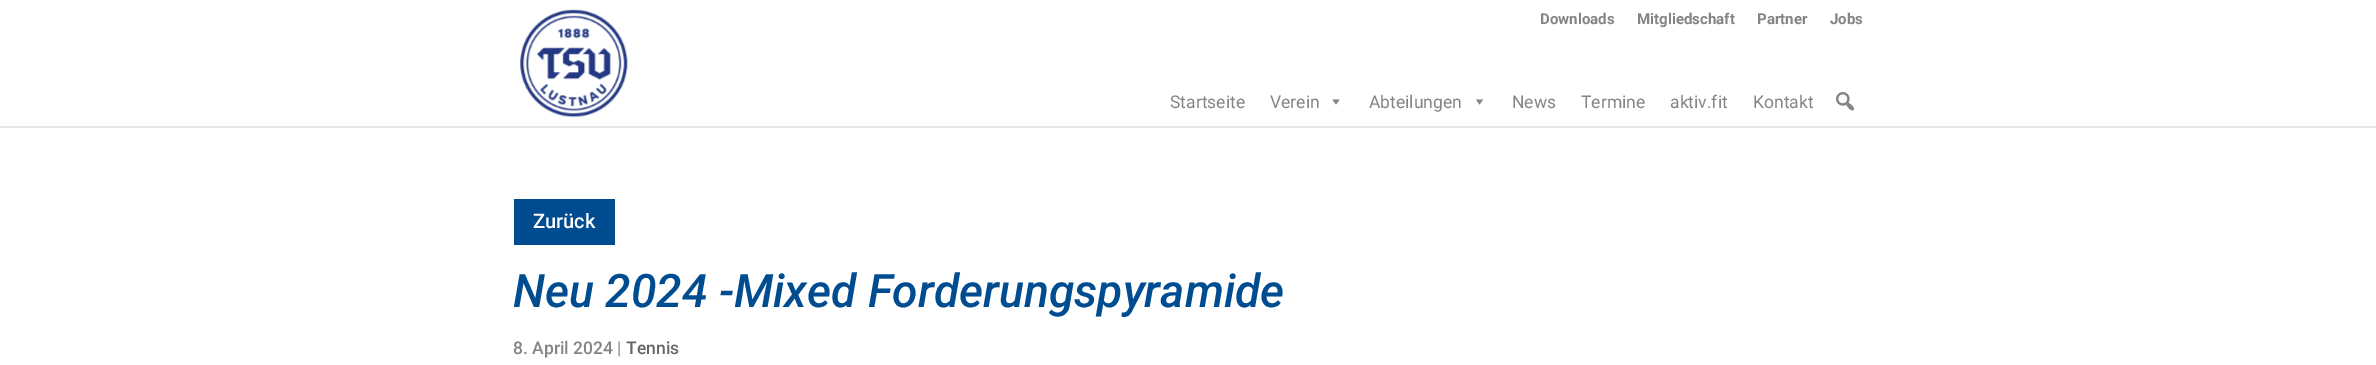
%!PS-Adobe-3.0
%%BoundingBox: 0 0 2376 365
%%LanguageLevel: 3
%%Pages: 1
%%EndComments
%%BeginProlog
/drawimage { 5 dict begin { /h /w /y /x /name } { exch def } forall
  gsave x y translate w h scale
  w h 8 [w 0 0 h 0 0] name (r) file false 3 colorimage grestore end } def
%%EndProlog
%%BeginSetup
<< /PageSize [2376 365] >> setpagedevice
%%EndSetup
%%Page: 1 1
0 365 translate 1 -1 scale
4 setmiterlimit
1 setgray
0 0 2376 365 rectfill
0.902 setgray
0 126 2376 2 rectfill
(images/1.raw) 520 9 108 109 drawimage
0.522 setgray
newpath 1339.5 99.5 moveto 1336 104.5 lineto 1332.5 99.5 lineto closepath fill
newpath 1483 99.5 moveto 1479.5 104.5 lineto 1476 99.5 lineto closepath fill
(images/2.raw) 1836 92 18 19 drawimage
0 0.298 0.569 setrgbcolor
514 199 101 46 rectfill
/Roboto-Bold [15 0 0 -15 0 0] selectfont
0.522 setgray
1540 24 moveto (Downloads) show
1637 24 moveto (Mitgliedschaft) show
1757 24 moveto (Partner) show
1830 24 moveto (Jobs) show
/Roboto-Regular [17.5 0 0 -17.5 0 0] selectfont
1170 108 moveto (Startseite) show
1270 108 moveto (Verein) show
1369 108 moveto (Abteilungen) show
1512 108 moveto (News) show
1581 108 moveto (Termine) show
1670 108 moveto (aktiv.fit) show
1753 108 moveto (Kontakt) show
/Roboto-Medium [20 0 0 -20 0 0] selectfont
1 setgray
533 228 moveto (Zurück) show
/Roboto-MediumItalic [46.25 0 0 -46.25 0 0] selectfont
0 0.298 0.569 setrgbcolor
513 307 moveto (Neu 2024 -Mixed Forderungspyramide) show
/Roboto-Medium [17.5 0 0 -17.5 0 0] selectfont
0.522 setgray
513 354 moveto (8. April 2024 |) show
0.4 setgray
626 354 moveto (Tennis) show
showpage
%%EOF
